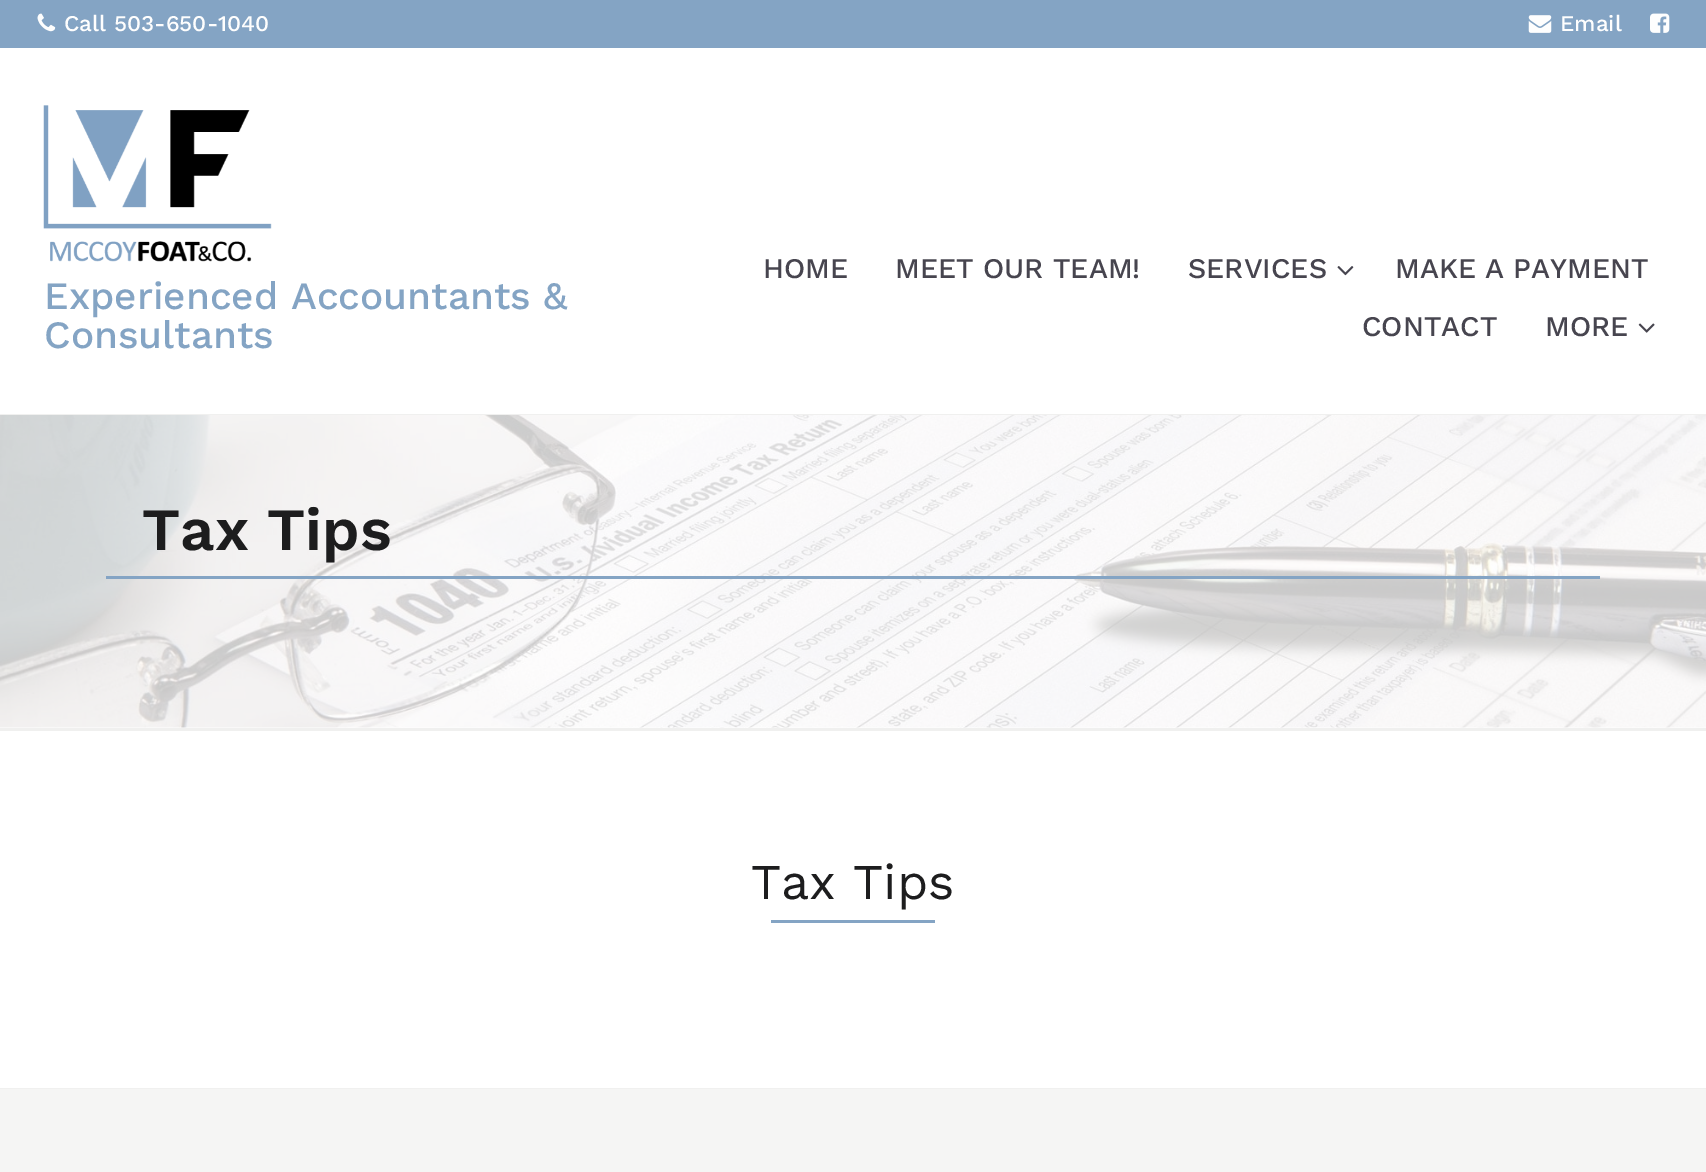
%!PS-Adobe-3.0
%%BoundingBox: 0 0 1706 1172
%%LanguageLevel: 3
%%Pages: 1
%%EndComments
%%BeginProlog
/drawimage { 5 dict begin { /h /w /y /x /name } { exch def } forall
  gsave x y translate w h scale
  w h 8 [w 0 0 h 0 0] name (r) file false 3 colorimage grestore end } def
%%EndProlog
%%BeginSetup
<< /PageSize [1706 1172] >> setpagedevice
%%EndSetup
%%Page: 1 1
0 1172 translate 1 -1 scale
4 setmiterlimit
1 setgray
0 0 1706 1172 rectfill
0.941 0.941 0.937 setrgbcolor
0 414 1706 1 rectfill
0.518 0.643 0.769 setrgbcolor
0 0 1706 48 rectfill
(images/1.raw) 37 13 19 19 drawimage
(images/2.raw) 1528 15 24 18 drawimage
(images/3.raw) 1650 13 20 20 drawimage
(images/4.raw) 43 105 229 157 drawimage
(images/5.raw) 1337 266 17 10 drawimage
(images/6.raw) 1638 323 17 10 drawimage
0.941 0.941 0.937 setrgbcolor
0 728 1706 3 rectfill
(images/7.raw) 0 415 1706 313 drawimage
0.518 0.643 0.769 setrgbcolor
106 576 1494 3 rectfill
771 920 164 3 rectfill
0.941 0.941 0.937 setrgbcolor
0 1088 1706 1 rectfill
0.961 0.961 0.957 setrgbcolor
0 1089 1706 83 rectfill
/WorkSans-Medium [22.5 0 0 -22.5 0 0] selectfont
0.996 setgray
64 31 moveto (Call 503-650-1040) show
1560 31 moveto (Email) show
/WorkSans-Medium [38.75 0 0 -38.75 0 0] selectfont
0.518 0.643 0.769 setrgbcolor
44 309 moveto (Experienced Accountants &) show
44 348 moveto (Consultants) show
/WorkSans-Medium [28.5 0 0 -28.5 0 0] selectfont
0.278 0.271 0.31 setrgbcolor
763 278 moveto (HOME) show
895 278 moveto (MEET OUR TEAM!) show
1188 278 moveto (SERVICES) show
1395 278 moveto (MAKE A PAYMENT) show
1362 336 moveto (CONTACT) show
1545 336 moveto (MORE) show
/WorkSans-SemiBold [60 0 0 -60 0 0] selectfont
0.114 0.114 0.118 setrgbcolor
142 550 moveto (Tax Tips) show
/WorkSans-Regular [50 0 0 -50 0 0] selectfont
751 899 moveto (Tax Tips) show
showpage
%%EOF
